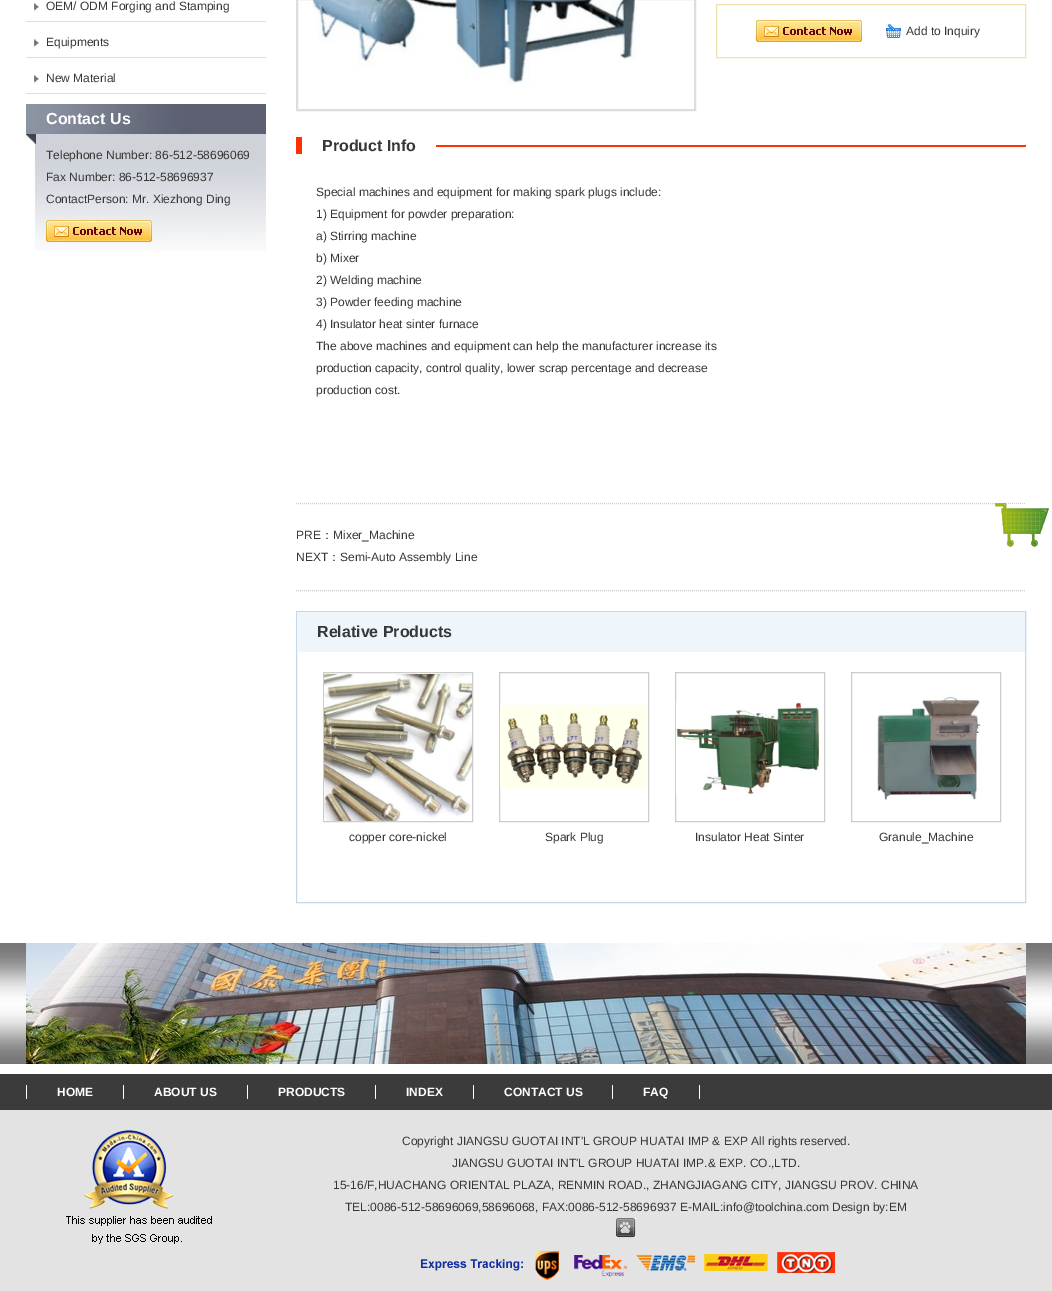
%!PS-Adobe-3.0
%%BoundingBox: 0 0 1052 1291
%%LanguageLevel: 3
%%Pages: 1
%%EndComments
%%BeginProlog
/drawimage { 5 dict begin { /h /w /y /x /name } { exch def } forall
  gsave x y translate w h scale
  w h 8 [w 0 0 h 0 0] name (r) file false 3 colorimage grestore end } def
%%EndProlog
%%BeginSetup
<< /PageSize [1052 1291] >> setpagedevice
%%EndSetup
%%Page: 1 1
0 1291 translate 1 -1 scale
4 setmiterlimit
1 setgray
0 0 1052 1291 rectfill
0.867 setgray
26 21 240 1 rectfill
(images/1.raw) 34 3 5 8 drawimage
26 57 240 1 rectfill
(images/1.raw) 34 39 5 8 drawimage
26 93 240 1 rectfill
(images/1.raw) 34 75 5 8 drawimage
(images/2.raw) 26 104 240 147 drawimage
(images/3.raw) 46 220 106 22 drawimage
2 setlinewidth
297 -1 398 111 rectstroke
(images/4.raw) 311 0 326 86 drawimage
0.949 0.878 0.667 setrgbcolor
1 setlinewidth
716.5 4.5 309 53 rectstroke
(images/3.raw) 756 20 106 22 drawimage
(images/5.raw) 886 24 15 14 drawimage
1 0.2 0 setrgbcolor
436 145 590 2 rectfill
296 137 6 17 rectfill
0.8 setgray
[1 1] 0 setdash
newpath 296 503.5 moveto 1026 503.5 lineto stroke
newpath 296 590.5 moveto 1026 590.5 lineto stroke
0.773 0.843 0.929 setrgbcolor
[] 0 setdash
296.5 611.5 729 291 rectstroke
0.933 0.965 0.984 setrgbcolor
297 612 728 40 rectfill
0.8 setgray
323.5 672.5 149 149 rectstroke
(images/6.raw) 324 674 148 147 drawimage
499.5 672.5 149 149 rectstroke
(images/7.raw) 500 705 148 84 drawimage
675.5 672.5 149 149 rectstroke
(images/8.raw) 676 702 144 94 drawimage
851.5 672.5 149 149 rectstroke
(images/9.raw) 877 696 104 104 drawimage
(images/10.raw) 995 503 54 44 drawimage
(images/11.raw) 0 943 1052 121 drawimage
(images/12.raw) 26 943 1000 121 drawimage
0.235 0.231 0.235 setrgbcolor
0 1074 1052 36 rectfill
1 setgray
123 1085 1 14 rectfill
26 1085 1 14 rectfill
247 1085 1 14 rectfill
375 1085 1 14 rectfill
473 1085 1 14 rectfill
612 1085 1 14 rectfill
699 1085 1 14 rectfill
0.89 setgray
0 1110 1052 181 rectfill
(images/13.raw) 66 1130 146 114 drawimage
(images/14.raw) 616 1218 20 20 drawimage
(images/15.raw) 418 1248 417 32 drawimage
/LiberationSans-Regular [12 0 0 -12 0 0] selectfont
0.216 setgray
46 10 moveto (OEM/ ODM Forging and Stamping) show
46 46 moveto (Equipments) show
46 82 moveto (New Material) show
/LiberationSans-Bold [16 0 0 -16 0 0] selectfont
1 setgray
46 124 moveto (Contact Us) show
/LiberationSans-Regular [12 0 0 -12 0 0] selectfont
0.216 setgray
46 159 moveto (Telephone Number: 86-512-58696069) show
46 181 moveto (Fax Number: 86-512-58696937) show
46 203 moveto (ContactPerson: Mr. Xiezhong Ding) show
906 35 moveto (Add to Inquiry) show
/LiberationSans-Bold [16 0 0 -16 0 0] selectfont
322 151 moveto (Product Info) show
/LiberationSans-Regular [12 0 0 -12 0 0] selectfont
316 196 moveto (Special machines and equipment for making spark plugs include:) show
316 218 moveto (1\) Equipment for powder preparation:) show
316 240 moveto (a\) Stirring machine) show
316 262 moveto (b\) Mixer) show
316 284 moveto (2\) Welding machine) show
316 306 moveto (3\) Powder feeding machine) show
316 328 moveto (4\) Insulator heat sinter furnace) show
316 350 moveto (The above machines and equipment can help the manufacturer increase its) show
316 372 moveto (production capacity, control quality, lower scrap percentage and decrease) show
316 394 moveto (production cost.) show
296 539 moveto (PRE) show
/WenQuanYiZenHei-Medium [12 0 0 -12 0 0] selectfont
321 539 moveto (：) show
/LiberationSans-Regular [12 0 0 -12 0 0] selectfont
333 539 moveto (Mixer_Machine) show
296 561 moveto (NEXT) show
/WenQuanYiZenHei-Medium [12 0 0 -12 0 0] selectfont
328 561 moveto (：) show
/LiberationSans-Regular [12 0 0 -12 0 0] selectfont
340 561 moveto (Semi-Auto Assembly Line) show
/LiberationSans-Bold [16 0 0 -16 0 0] selectfont
317 637 moveto (Relative Products) show
/LiberationSans-Regular [12 0 0 -12 0 0] selectfont
349 841 moveto (copper core-nickel) show
545 841 moveto (Spark Plug) show
695 841 moveto (Insulator Heat Sinter) show
879 841 moveto (Granule_Machine) show
/LiberationSans-Bold [12 0 0 -12 0 0] selectfont
1 setgray
57 1096 moveto (HOME) show
154 1096 moveto (ABOUT US) show
278 1096 moveto (PRODUCTS) show
406 1096 moveto (INDEX) show
504 1096 moveto (CONTACT US) show
643 1096 moveto (FAQ) show
/LiberationSans-Regular [12 0 0 -12 0 0] selectfont
0.216 setgray
402 1145 moveto (Copyright JIANGSU GUOTAI INT'L GROUP HUATAI IMP & EXP All rights reserved.) show
452 1167 moveto (JIANGSU GUOTAI INT'L GROUP HUATAI IMP.& EXP. CO.,LTD.) show
333 1189 moveto (15-16/F,HUACHANG ORIENTAL PLAZA, RENMIN ROAD., ZHANGJIAGANG CITY, JIANGSU PROV. CHINA) show
345 1211 moveto (TEL:0086-512-58696069,58696068, FAX:0086-512-58696937 E-MAIL:info@toolchina.com Design by:EM) show
showpage
%%EOF
